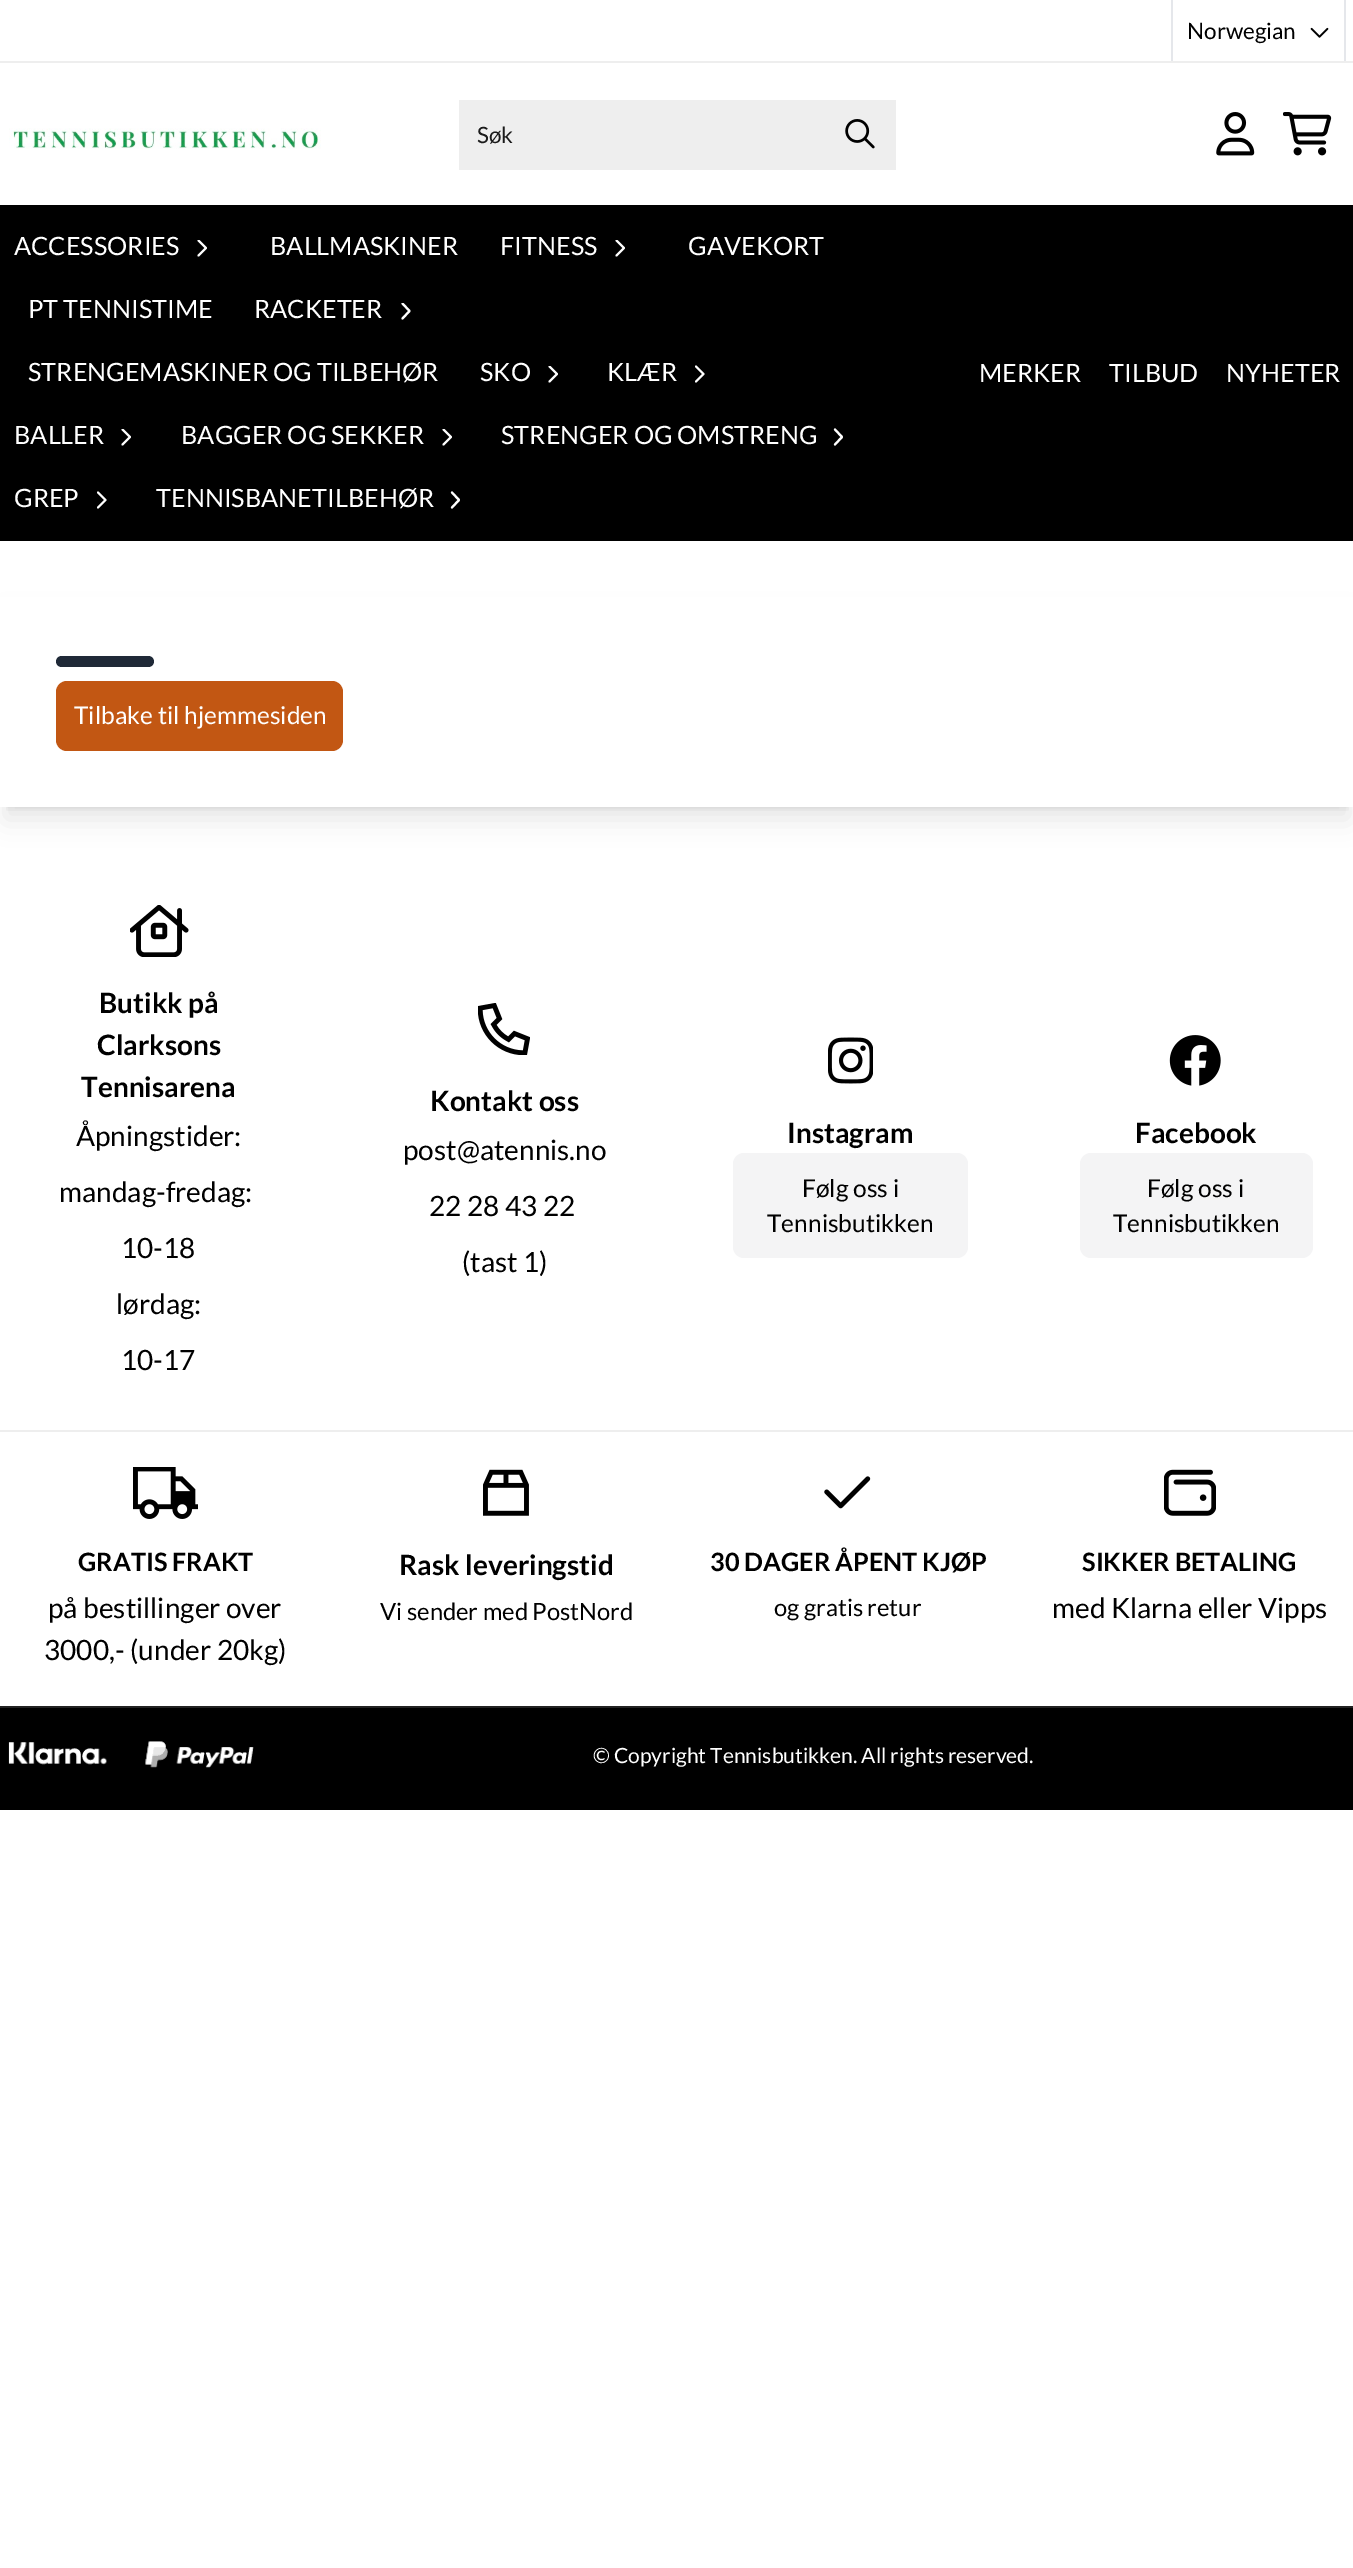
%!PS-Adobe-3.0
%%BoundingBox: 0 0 1353 2568
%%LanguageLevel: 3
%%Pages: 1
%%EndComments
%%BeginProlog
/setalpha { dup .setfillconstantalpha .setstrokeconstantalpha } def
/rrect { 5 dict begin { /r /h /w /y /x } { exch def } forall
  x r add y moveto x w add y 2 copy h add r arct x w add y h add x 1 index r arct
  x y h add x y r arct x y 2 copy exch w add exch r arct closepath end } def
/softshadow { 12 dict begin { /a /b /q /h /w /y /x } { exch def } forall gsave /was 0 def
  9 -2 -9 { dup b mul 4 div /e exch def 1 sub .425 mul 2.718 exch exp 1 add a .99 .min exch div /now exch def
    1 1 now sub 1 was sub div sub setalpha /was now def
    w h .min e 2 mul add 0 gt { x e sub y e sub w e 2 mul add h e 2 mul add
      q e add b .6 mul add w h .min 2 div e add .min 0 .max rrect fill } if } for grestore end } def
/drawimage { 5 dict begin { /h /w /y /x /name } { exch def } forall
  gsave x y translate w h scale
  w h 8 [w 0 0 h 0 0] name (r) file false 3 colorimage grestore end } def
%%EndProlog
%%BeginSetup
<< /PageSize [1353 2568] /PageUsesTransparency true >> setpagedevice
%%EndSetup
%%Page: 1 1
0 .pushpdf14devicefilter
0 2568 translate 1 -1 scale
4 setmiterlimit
1 setgray
0 0 1353 2568 rectfill
0.933 setgray
0 61 1353 2 rectfill
0.898 0.906 0.922 setrgbcolor
1344 0 2 61 rectfill
1171 0 2 61 rectfill
(images/1.raw) 1310 27 19 11 drawimage
(images/2.raw) 9 128 312 21 drawimage
0.933 setgray
459 100 437 70 rectfill
(images/3.raw) 845 119 30 30 drawimage
(images/4.raw) 1216 112 39 44 drawimage
(images/5.raw) 1283 112 49 44 drawimage
0 setgray
0 205 1353 336 rectfill
gsave
193 240 21 21 rectclip
1 setgray
2.1 setlinewidth
1 setlinecap
1 setlinejoin
newpath 198.5 240.5 moveto 206 248 lineto 198.5 255.5 lineto stroke
grestore
gsave
611 240 21 21 rectclip
1 setgray
2.1 setlinewidth
1 setlinecap
1 setlinejoin
newpath 616.5 240.5 moveto 624 248 lineto 616.5 255.5 lineto stroke
grestore
gsave
396 303 21 21 rectclip
1 setgray
2.1 setlinewidth
1 setlinecap
1 setlinejoin
newpath 402.5 303.5 moveto 409.5 311 lineto 402.5 318.5 lineto stroke
grestore
gsave
544 366 21 21 rectclip
1 setgray
2.1 setlinewidth
1 setlinecap
1 setlinejoin
newpath 549.5 366.5 moveto 557 374 lineto 549.5 381.5 lineto stroke
grestore
1 setgray
2.1 setlinewidth
1 setlinecap
1 setlinejoin
newpath 696 366.5 moveto 703.5 374 lineto 696 381.5 lineto stroke
gsave
119 429 21 21 rectclip
newpath 122.5 429.5 moveto 130 437 lineto 122.5 444.5 lineto stroke
grestore
gsave
438 429 21 21 rectclip
newpath 443.5 429.5 moveto 451 437 lineto 443.5 444.5 lineto stroke
grestore
newpath 835 429.5 moveto 842 437 lineto 835 444.5 lineto stroke
newpath 98 492.5 moveto 105.5 500 lineto 98 507.5 lineto stroke
newpath 452 492.5 moveto 459 500 lineto 452 507.5 lineto stroke
gsave
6 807 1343 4 rectclip
0 setgray
7 611 1341 196 0 5 0.1 softshadow
grestore
gsave
newpath 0 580 moveto 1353 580 lineto 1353 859 lineto 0 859 lineto closepath 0 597 moveto 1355 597 lineto 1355 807 lineto 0 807 lineto closepath eoclip newpath
0 setgray
5 620 1344 199 0 13 0.1 softshadow
grestore
0.122 0.161 0.216 setrgbcolor
56 656 98 11 5.5 rrect fill
0.761 0.341 0.075 setrgbcolor
56 681 287 70 11 rrect fill
(images/6.raw) 130 905 59 52 drawimage
(images/7.raw) 478 1003 52 52 drawimage
(images/8.raw) 828 1037 45 47 drawimage
0.957 0.957 0.961 setrgbcolor
733 1153 235 105 11 rrect fill
(images/9.raw) 1169 1035 52 51 drawimage
1080 1153 233 105 11 rrect fill
0.933 setgray
0 1430 1353 2 rectfill
(images/10.raw) 133 1467 65 52 drawimage
(images/11.raw) 483 1469 46 47 drawimage
(images/12.raw) 824 1476 47 33 drawimage
(images/13.raw) 1164 1469 52 47 drawimage
0 setgray
0 1708 1353 102 rectfill
0.133 setgray
0 1706 1353 2 rectfill
(images/14.raw) 8 1741 246 27 drawimage
/Lato-Regular [22.5 0 0 -22.5 0 0] selectfont
0 setgray
1187 39 moveto (Norwegian) show
0.106 setgray
477 143 moveto (Søk) show
/Lato-Regular [25.25 0 0 -25.25 0 0] selectfont
1 setgray
14 255 moveto (ACCESSORIES) show
270 255 moveto (BALLMASKINER) show
500 255 moveto (FITNESS) show
688 255 moveto (GAVEKORT) show
28 318 moveto (PT TENNISTIME) show
254 318 moveto (RACKETER) show
28 381 moveto (STRENGEMASKINER OG TILBEHØR) show
480 381 moveto (SKO) show
607 381 moveto (KLÆR) show
14 444 moveto (BALLER) show
181 444 moveto (BAGGER OG SEKKER) show
501 444 moveto (STRENGER OG OMSTRENG) show
14 507 moveto (GREP) show
156 507 moveto (TENNISBANETILBEHØR) show
979 382 moveto (MERKER) show
1109 382 moveto (TILBUD) show
1226 382 moveto (NYHETER) show
/Lato-Regular [24.5 0 0 -24.5 0 0] selectfont
74 724 moveto (Tilbake til hjemmesiden) show
/Lato-Bold [28 0 0 -28 0 0] selectfont
0 setgray
99 1013 moveto (Butikk på) show
97 1055 moveto (Clarksons) show
81 1097 moveto (Tennisarena) show
/Lato-Regular [28 0 0 -28 0 0] selectfont
76 1146 moveto (Åpningstider:) show
59 1202 moveto (mandag-fredag:) show
121 1258 moveto (10-18) show
116 1314 moveto (lørdag:) show
121 1370 moveto (10-17) show
/Lato-Bold [28 0 0 -28 0 0] selectfont
430 1111 moveto (Kontakt oss) show
/Lato-Regular [28 0 0 -28 0 0] selectfont
403 1160 moveto (post@atennis.no) show
429 1216 moveto (22 28 43 22) show
462 1272 moveto (\(tast 1\)) show
/Lato-Bold [28 0 0 -28 0 0] selectfont
787 1143 moveto (Instagram) show
/Lato-Regular [24.5 0 0 -24.5 0 0] selectfont
802 1197 moveto (Følg oss i) show
767 1232 moveto (Tennisbutikken) show
/Lato-Bold [28 0 0 -28 0 0] selectfont
1135 1143 moveto (Facebook) show
/Lato-Regular [24.5 0 0 -24.5 0 0] selectfont
1147 1197 moveto (Følg oss i) show
1113 1232 moveto (Tennisbutikken) show
/Lato-Bold [25.25 0 0 -25.25 0 0] selectfont
78 1571 moveto (GRATIS FRAKT) show
/Lato-Regular [28 0 0 -28 0 0] selectfont
48 1618 moveto (på bestillinger over) show
44 1660 moveto (3000,- \(under 20kg\)) show
/Lato-Bold [28 0 0 -28 0 0] selectfont
399 1575 moveto (Rask leveringstid) show
/Lato-Regular [23.75 0 0 -23.75 0 0] selectfont
380 1620 moveto (Vi sender med PostNord) show
/Lato-Bold [25.25 0 0 -25.25 0 0] selectfont
710 1571 moveto (30 DAGER ÅPENT KJØP) show
/Lato-Regular [23.75 0 0 -23.75 0 0] selectfont
774 1616 moveto (og gratis retur) show
/Lato-Bold [25.25 0 0 -25.25 0 0] selectfont
1082 1571 moveto (SIKKER BETALING) show
/Lato-Regular [28 0 0 -28 0 0] selectfont
1052 1618 moveto (med Klarna eller Vipps) show
/Lato-Regular [21 0 0 -21 0 0] selectfont
1 setgray
593 1763 moveto (© Copyright Tennisbutikken. All rights reserved.) show
.poppdf14devicefilter showpage
%%EOF
